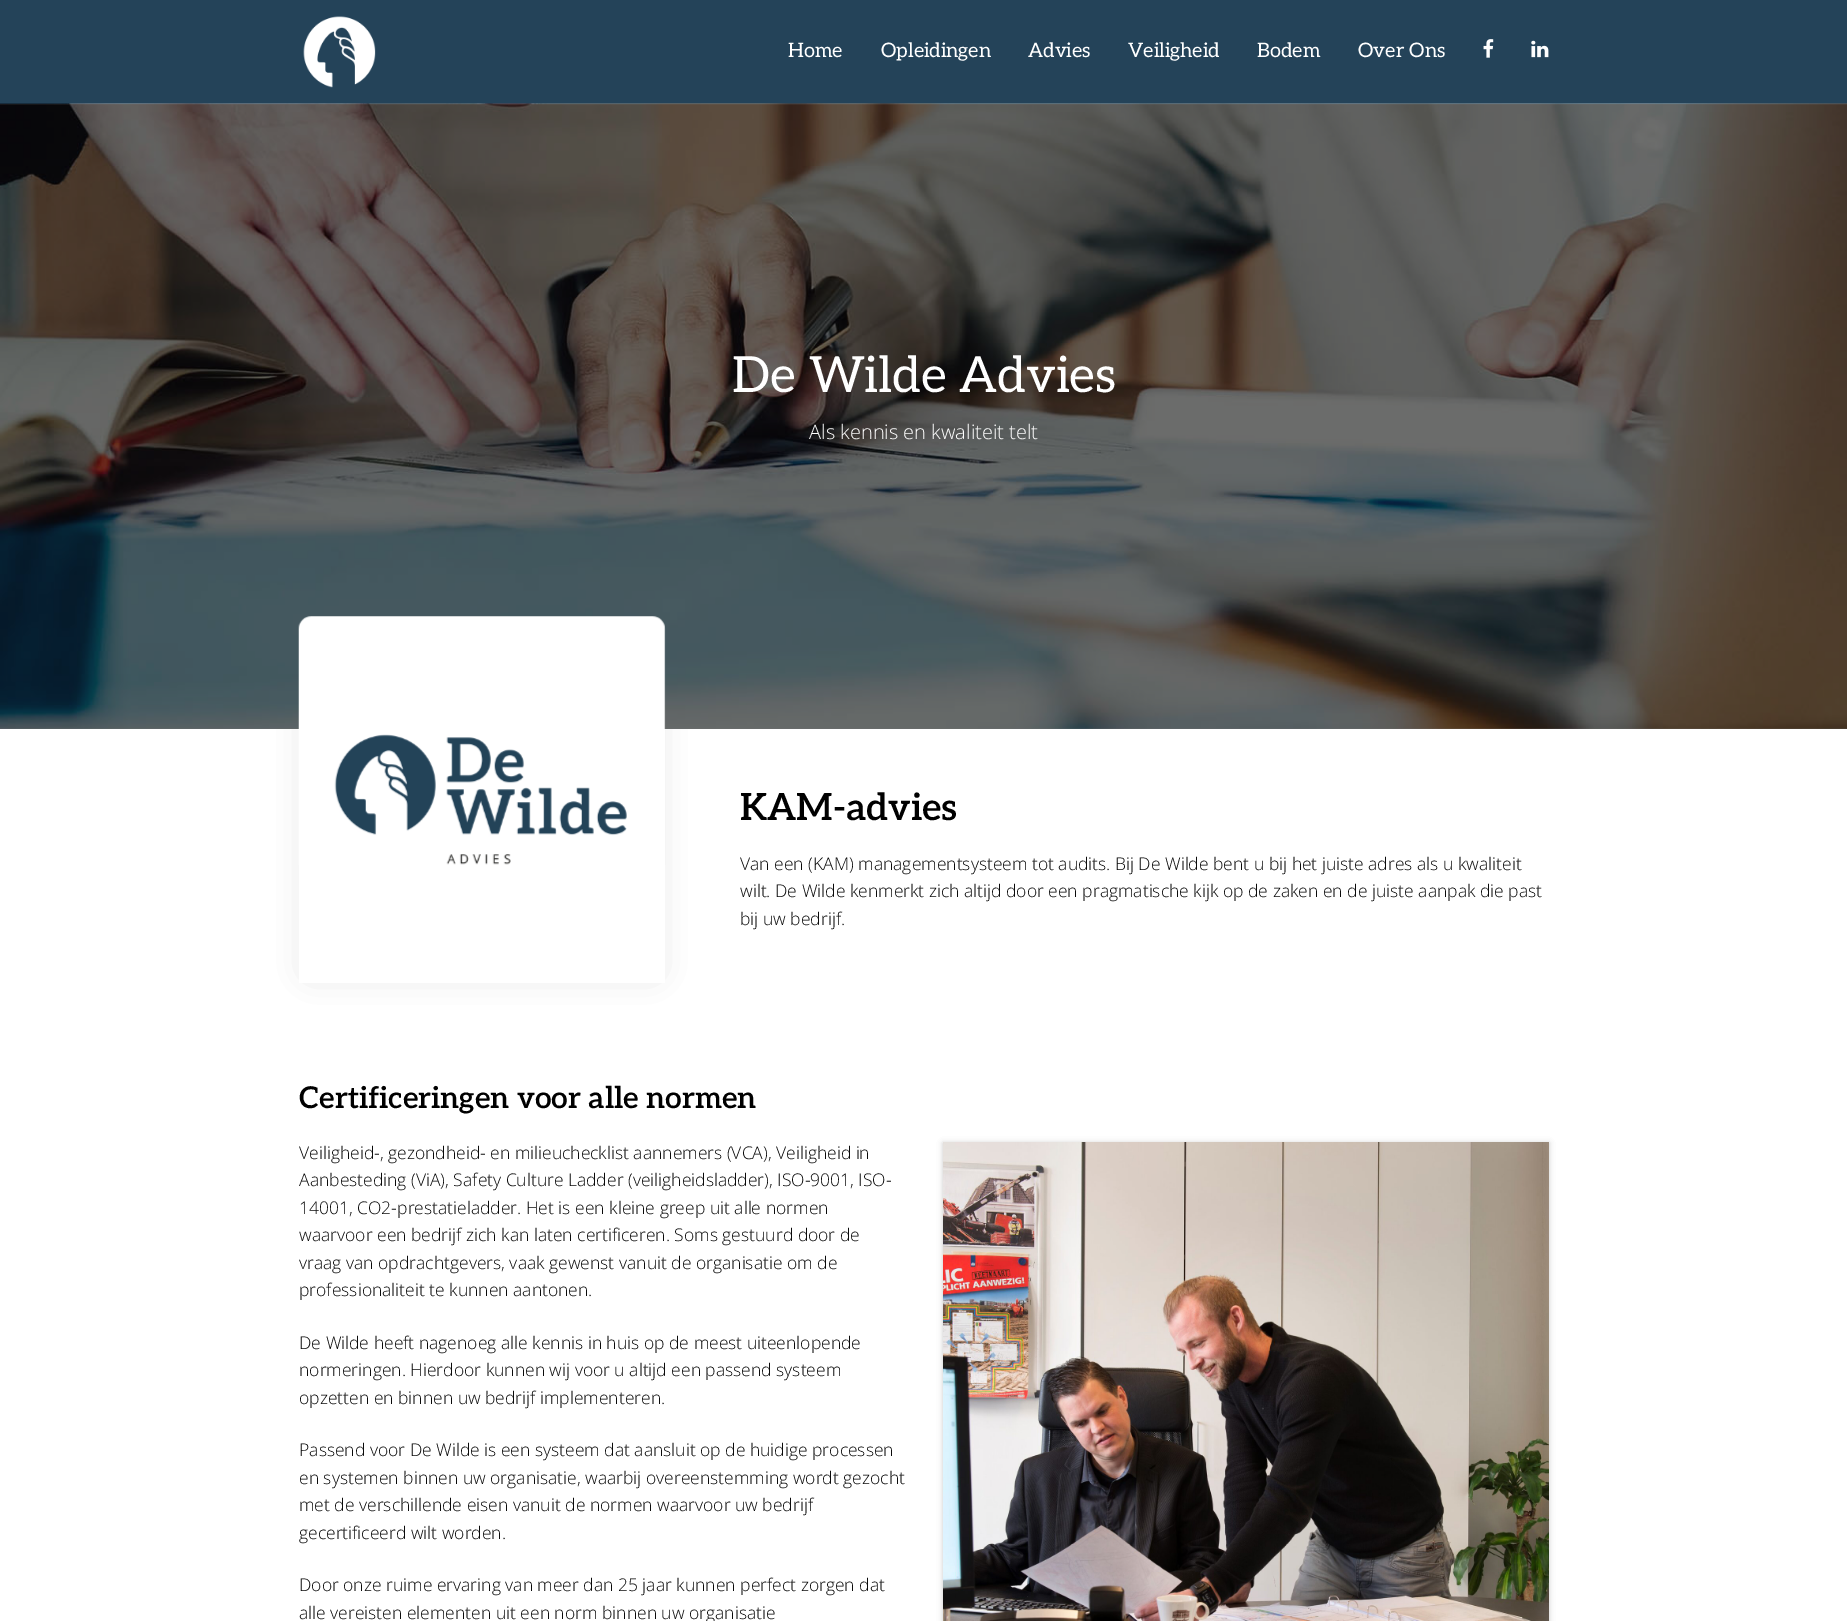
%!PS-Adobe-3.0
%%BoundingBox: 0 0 1847 1621
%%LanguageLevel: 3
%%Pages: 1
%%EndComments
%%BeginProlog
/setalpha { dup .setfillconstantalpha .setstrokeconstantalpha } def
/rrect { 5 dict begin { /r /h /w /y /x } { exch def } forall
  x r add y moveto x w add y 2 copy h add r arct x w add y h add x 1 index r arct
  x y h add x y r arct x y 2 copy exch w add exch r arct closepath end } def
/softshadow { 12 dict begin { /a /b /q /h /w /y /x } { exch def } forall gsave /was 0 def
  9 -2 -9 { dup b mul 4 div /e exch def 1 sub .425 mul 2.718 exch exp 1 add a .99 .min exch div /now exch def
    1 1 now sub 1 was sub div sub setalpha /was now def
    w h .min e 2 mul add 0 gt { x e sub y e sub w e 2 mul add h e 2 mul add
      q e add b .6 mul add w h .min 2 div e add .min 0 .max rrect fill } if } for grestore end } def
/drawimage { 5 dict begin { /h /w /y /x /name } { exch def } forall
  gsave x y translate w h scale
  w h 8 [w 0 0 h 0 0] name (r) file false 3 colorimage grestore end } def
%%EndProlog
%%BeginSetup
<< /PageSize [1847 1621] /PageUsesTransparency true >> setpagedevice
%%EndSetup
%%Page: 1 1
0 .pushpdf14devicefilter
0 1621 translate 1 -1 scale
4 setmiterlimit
1 setgray
0 0 1847 1621 rectfill
0.141 0.263 0.349 setrgbcolor
0 0 1847 104 rectfill
(images/1.raw) 303 16 73 72 drawimage
(images/2.raw) 1483 39 11 19 drawimage
(images/3.raw) 1531 40 18 18 drawimage
gsave
newpath 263 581 moveto 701 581 lineto 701 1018 lineto 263 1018 lineto closepath 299 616 moveto 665 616 lineto 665 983 lineto 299 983 lineto closepath eoclip newpath
0 setgray
311 629 342 341 0 15.5 0.19 softshadow
grestore
(images/4.raw) 0 103 1847 626 drawimage
0.55 setalpha
0.039 setgray
0 104 1847 625 rectfill
1 setalpha
(images/5.raw) 298 616 368 249 drawimage
0 setgray
943 1143 606 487 0 3 0.1 softshadow
943 1143 606 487 0 3 0.1 softshadow
(images/6.raw) 943 1142 606 479 drawimage
/Aleo-Regular [20 0 0 -20 0 0] selectfont
1 setgray
788 57 moveto (Home) show
881 57 moveto (Opleidingen) show
1028 57 moveto (Advies) show
1128 57 moveto (Veiligheid) show
1257 57 moveto (Bodem) show
1358 57 moveto (Over Ons) show
/Aleo-Regular [50 0 0 -50 0 0] selectfont
732 392 moveto (De Wilde Advies) show
/OpenSans-Light [20 0 0 -20 0 0] selectfont
809 439 moveto (Als kennis en kwaliteit telt) show
/Aleo-SemiBold [37.5 0 0 -37.5 0 0] selectfont
0 setgray
740 820 moveto (KAM-advies) show
/OpenSans-Light [17.5 0 0 -17.5 0 0] selectfont
0.039 setgray
740 870 moveto (Van een \(KAM\) managementsysteem tot audits. Bij De Wilde bent u bij het juiste adres als u kwaliteit) show
740 897 moveto (wilt. De Wilde kenmerkt zich altijd door een pragmatische kijk op de zaken en de juiste aanpak die past) show
740 925 moveto (bij uw bedrijf.) show
/Aleo-SemiBold [30 0 0 -30 0 0] selectfont
0 setgray
299 1108 moveto (Certificeringen voor alle normen) show
/OpenSans-Light [17.5 0 0 -17.5 0 0] selectfont
0.039 setgray
299 1159 moveto (Veiligheid-, gezondheid- en milieuchecklist aannemers \(VCA\), Veiligheid in) show
299 1186 moveto (Aanbesteding \(ViA\), Safety Culture Ladder \(veiligheidsladder\), ISO-9001, ISO-) show
299 1214 moveto (14001, CO2-prestatieladder. Het is een kleine greep uit alle normen) show
299 1241 moveto (waarvoor een bedrijf zich kan laten certificeren. Soms gestuurd door de) show
299 1269 moveto (vraag van opdrachtgevers, vaak gewenst vanuit de organisatie om de) show
299 1296 moveto (professionaliteit te kunnen aantonen.) show
299 1349 moveto (De Wilde heeft nagenoeg alle kennis in huis op de meest uiteenlopende) show
299 1376 moveto (normeringen. Hierdoor kunnen wij voor u altijd een passend systeem) show
299 1404 moveto (opzetten en binnen uw bedrijf implementeren.) show
299 1456 moveto (Passend voor De Wilde is een systeem dat aansluit op de huidige processen) show
299 1484 moveto (en systemen binnen uw organisatie, waarbij overeenstemming wordt gezocht) show
299 1511 moveto (met de verschillende eisen vanuit de normen waarvoor uw bedrijf) show
299 1539 moveto (gecertificeerd wilt worden.) show
299 1591 moveto (Door onze ruime ervaring van meer dan 25 jaar kunnen perfect zorgen dat) show
299 1619 moveto (alle vereisten elementen uit een norm binnen uw organisatie) show
.poppdf14devicefilter showpage
%%EOF
